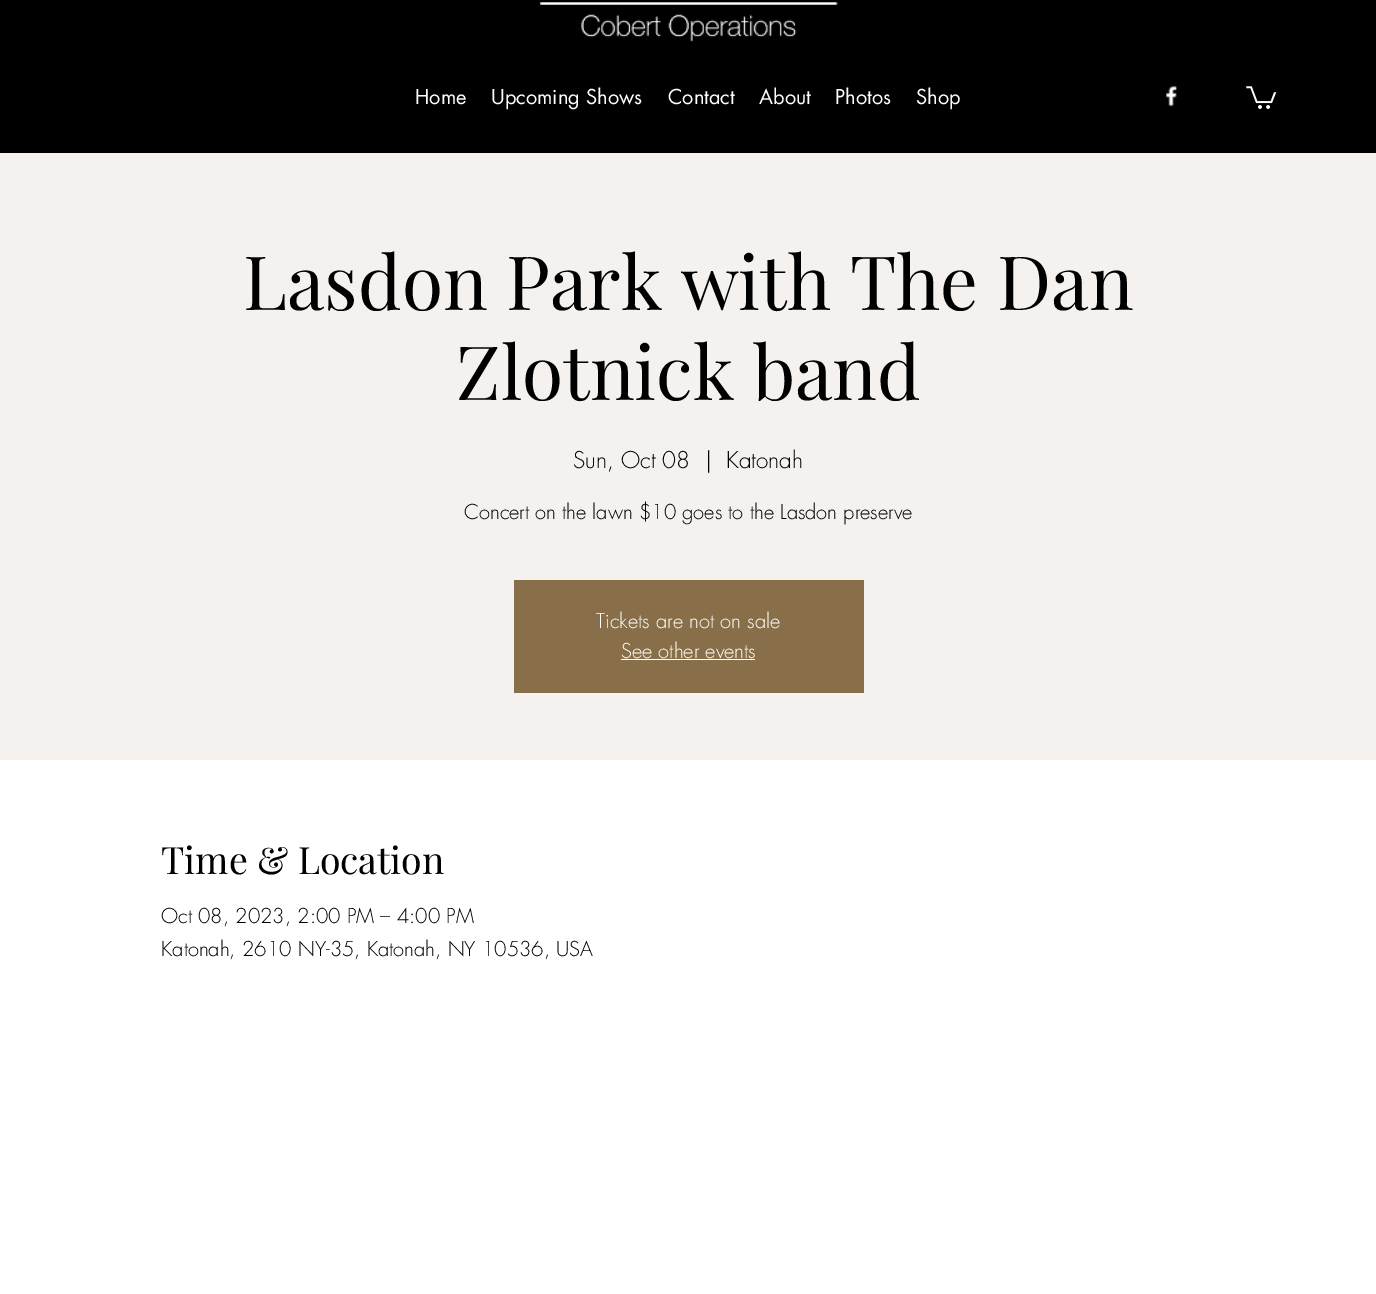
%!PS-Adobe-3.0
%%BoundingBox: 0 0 1376 1294
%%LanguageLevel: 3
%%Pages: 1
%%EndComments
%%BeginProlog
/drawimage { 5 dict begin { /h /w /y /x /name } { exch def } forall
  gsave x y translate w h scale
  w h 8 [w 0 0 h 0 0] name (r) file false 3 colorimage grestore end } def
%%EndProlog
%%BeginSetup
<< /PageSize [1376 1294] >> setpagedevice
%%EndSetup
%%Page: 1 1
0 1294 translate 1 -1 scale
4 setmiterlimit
1 setgray
0 0 1376 1294 rectfill
0 setgray
0 0 1376 153 rectfill
(images/1.raw) 539 2 299 40 drawimage
(images/2.raw) 1166 85 11 22 drawimage
(images/3.raw) 1246 86 31 23 drawimage
0.957 0.945 0.933 setrgbcolor
0 153 1376 607 rectfill
0.533 0.435 0.29 setrgbcolor
514 580 350 113 rectfill
1 setgray
621 659 134 1 rectfill
/futura-Regular [20 0 0 -20 0 0] selectfont
415 104 moveto (Home) show
491 104 moveto (Upcoming Shows) show
668 104 moveto (Contact) show
759 104 moveto (About) show
835 104 moveto (Photos) show
916 104 moveto (Shop) show
/PlayfairDisplay-Regular [75 0 0 -75 0 0] selectfont
0 setgray
243 310 moveto (Lasdon Park with The Dan) show
456 400 moveto (Zlotnick band) show
/futura-Light [22.5 0 0 -22.5 0 0] selectfont
573 468 moveto (Sun, Oct 08) show
705 468 moveto (|) show
726 468 moveto (Katonah) show
/futura-Light [20 0 0 -20 0 0] selectfont
464 519 moveto (Concert on the lawn $10 goes to the Lasdon preserve) show
1 setgray
596 628 moveto (Tickets are not on sale) show
621 658 moveto (See other events) show
/PlayfairDisplay-Regular [37.5 0 0 -37.5 0 0] selectfont
0 setgray
161 874 moveto (Time & Location) show
/futura-Light [20 0 0 -20 0 0] selectfont
161 923 moveto (Oct 08, 2023, 2:00 PM – 4:00 PM) show
161 956 moveto (Katonah, 2610 NY-35, Katonah, NY 10536, USA) show
showpage
%%EOF
